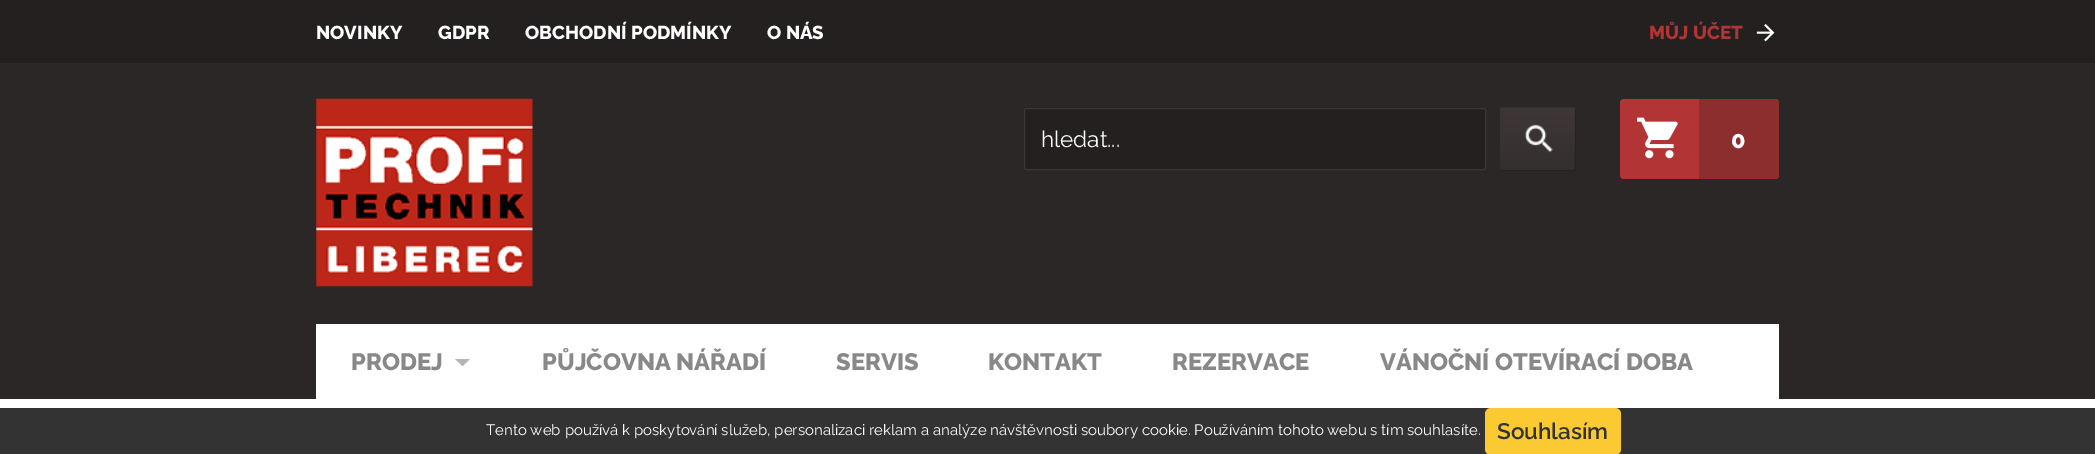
%!PS-Adobe-3.0
%%BoundingBox: 0 0 2095 454
%%LanguageLevel: 3
%%Pages: 1
%%EndComments
%%BeginProlog
/rrect { 5 dict begin { /r /h /w /y /x } { exch def } forall
  x r add y moveto x w add y 2 copy h add r arct x w add y h add x 1 index r arct
  x y h add x y r arct x y 2 copy exch w add exch r arct closepath end } def
/drawimage { 5 dict begin { /h /w /y /x /name } { exch def } forall
  gsave x y translate w h scale
  w h 8 [w 0 0 h 0 0] name (r) file false 3 colorimage grestore end } def
%%EndProlog
%%BeginSetup
<< /PageSize [2095 454] >> setpagedevice
%%EndSetup
%%Page: 1 1
0 454 translate 1 -1 scale
4 setmiterlimit
1 setgray
0 0 2095 454 rectfill
0.173 0.153 0.153 setrgbcolor
0 63 2095 336 rectfill
0.141 0.125 0.125 setrgbcolor
0 0 2095 63 rectfill
(images/1.raw) 1756 24 19 18 drawimage
(images/2.raw) 316 98 217 189 drawimage
1024.5 108.5 461 61 2 rrect gsave fill grestore
0.243 0.212 0.212 setrgbcolor
stroke
(images/3.raw) 1500 107 76 64 drawimage
0.702 0.204 0.204 setrgbcolor
1620 99 159 80 4 rrect fill
(images/4.raw) 1637 117 41 42 drawimage
0.553 0.18 0.18 setrgbcolor
newpath 1699 99 moveto 1775 99 lineto 1777 99 1779 101 1779 103 curveto 1779 175 lineto 1779 177 1777 179 1775 179 curveto 1699 179 lineto closepath fill
1 setgray
316 324 1463 75 rectfill
0.714 0.706 0.706 setrgbcolor
newpath 455 359 moveto 462.5 366 lineto 470 359 lineto closepath fill
0.2 setgray
0 408 2095 46 rectfill
0.984 0.792 0.2 setrgbcolor
1485 408 136 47 6 rrect fill
/Raleway-ExtraBold [18.75 0 0 -18.75 0 0] selectfont
1 setgray
316 39 moveto (NOVINKY) show
438 39 moveto (GDPR) show
525 39 moveto (OBCHODNÍ PODMÍNKY) show
767 39 moveto (O NÁS) show
0.702 0.204 0.204 setrgbcolor
1649 39 moveto (MŮJ ÚČET) show
/Raleway-Regular [22.5 0 0 -22.5 0 0] selectfont
1 setgray
1041 147 moveto (hledat...) show
/Raleway-ExtraBold [23.75 0 0 -23.75 0 0] selectfont
1731 148 moveto (0) show
0.533 setgray
351 370 moveto (PRODEJ) show
542 370 moveto (PŮJČOVNA NÁŘADÍ) show
836 370 moveto (SERVIS) show
988 370 moveto (KONTAKT) show
1172 370 moveto (REZERVACE) show
1380 370 moveto (VÁNOČNÍ OTEVÍRACÍ DOBA) show
/Raleway-Regular [15 0 0 -15 0 0] selectfont
1 setgray
486 435 moveto (Tento web používá k poskytování služeb, personalizaci reklam a analýze návštěvnosti soubory cookie. Používáním tohoto webu s tím souhlasíte.) show
/Raleway-SemiBold [22.5 0 0 -22.5 0 0] selectfont
0.2 setgray
1497 439 moveto (Souhlasím) show
showpage
%%EOF
